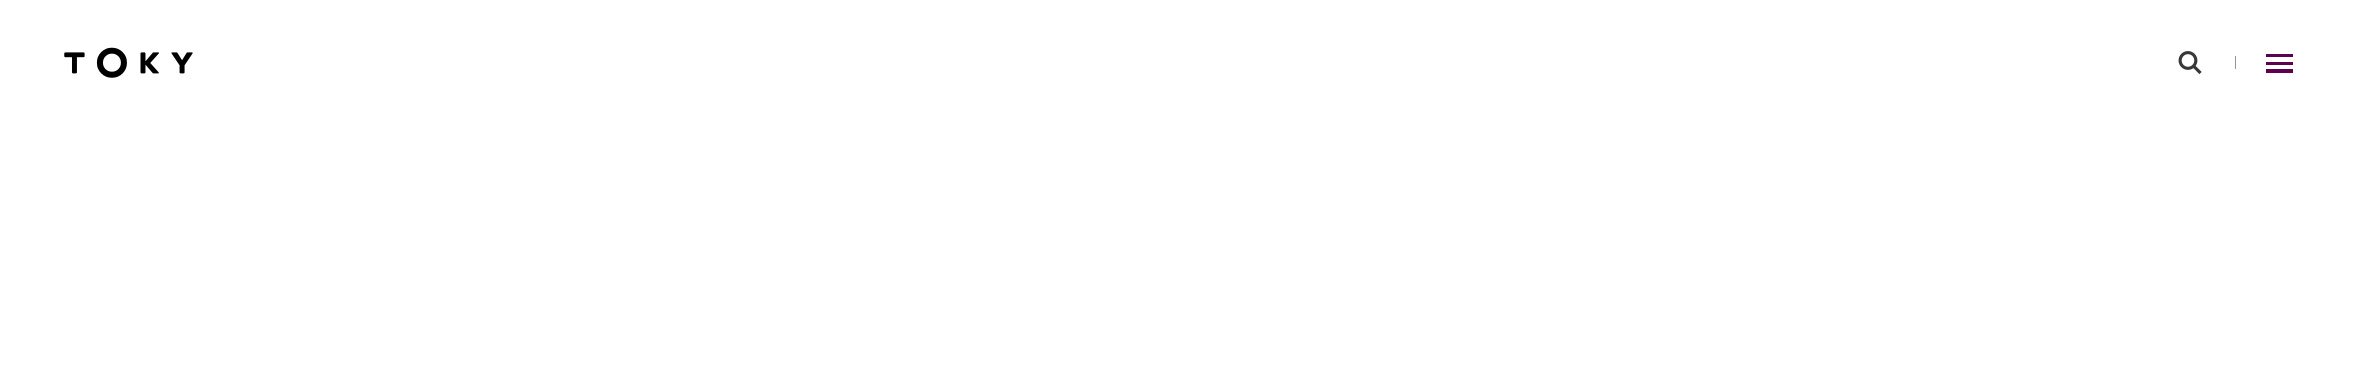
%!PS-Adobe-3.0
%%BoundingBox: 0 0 2356 381
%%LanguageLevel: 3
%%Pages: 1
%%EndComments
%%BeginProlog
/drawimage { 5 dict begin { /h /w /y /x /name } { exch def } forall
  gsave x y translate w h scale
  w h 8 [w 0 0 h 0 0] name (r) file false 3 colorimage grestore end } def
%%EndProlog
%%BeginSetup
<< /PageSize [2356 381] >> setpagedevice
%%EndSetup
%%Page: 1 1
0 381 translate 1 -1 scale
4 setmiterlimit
1 setgray
0 0 2356 381 rectfill
(images/1.raw) 64 47 129 31 drawimage
(images/2.raw) 2178 51 24 23 drawimage
0.58 setgray
2235 56 1 13 rectfill
0.365 0 0.306 setrgbcolor
2266 54 27 3 rectfill
2266 62 27 3 rectfill
2266 69 27 4 rectfill
showpage
%%EOF
